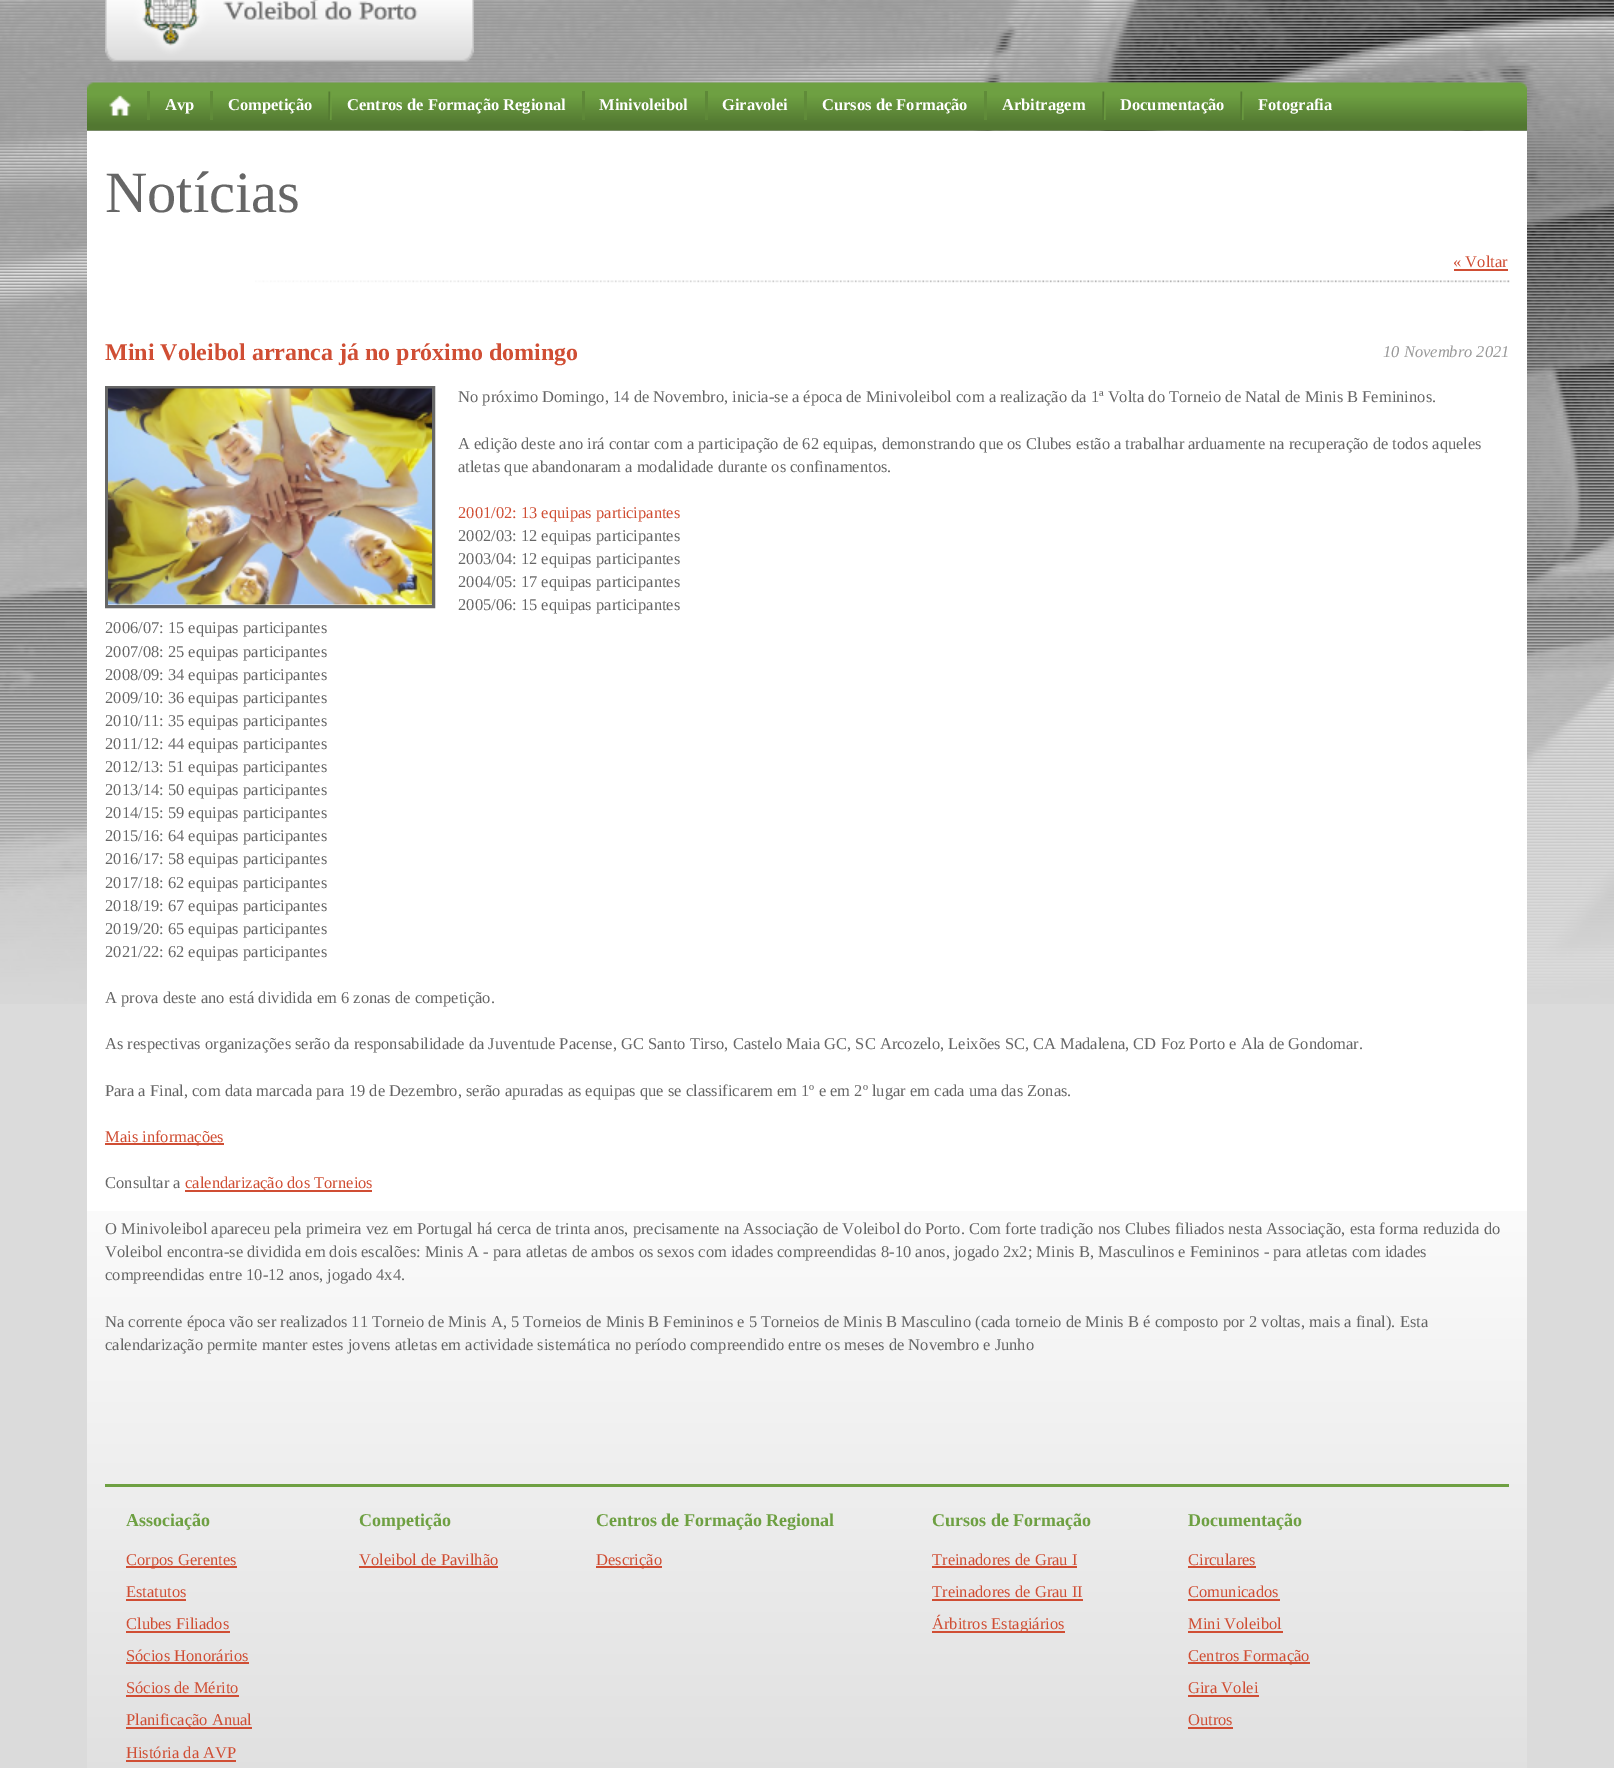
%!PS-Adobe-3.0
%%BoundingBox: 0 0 1614 1768
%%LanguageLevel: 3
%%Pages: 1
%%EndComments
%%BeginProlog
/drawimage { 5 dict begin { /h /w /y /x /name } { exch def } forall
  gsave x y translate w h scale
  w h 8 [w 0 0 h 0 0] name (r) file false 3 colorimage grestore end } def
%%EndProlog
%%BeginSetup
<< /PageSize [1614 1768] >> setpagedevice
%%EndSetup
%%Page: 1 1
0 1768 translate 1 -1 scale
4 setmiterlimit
0.859 setgray
0 0 1614 1768 rectfill
(images/1.raw) 0 0 1614 1004 drawimage
(images/2.raw) 105 0 369 62 drawimage
(images/3.raw) 87 82 1440 49 drawimage
(images/4.raw) 109 95 22 21 drawimage
0.376 0.545 0.224 setrgbcolor
147 91 3 29 rectfill
210 91 3 29 rectfill
(images/5.raw) 328 91 4 29 drawimage
0.369 0.533 0.22 setrgbcolor
582 91 3 29 rectfill
705 91 3 29 rectfill
0.376 0.545 0.224 setrgbcolor
804 91 3 29 rectfill
984 91 3 29 rectfill
(images/5.raw) 1102 91 4 29 drawimage
(images/5.raw) 1240 91 4 29 drawimage
1 setgray
87 131 1440 1080 rectfill
(images/6.raw) 87 1211 1440 557 drawimage
(images/7.raw) 255 280 1255 3 drawimage
0.816 0.306 0.204 setrgbcolor
1454 269 54 2 rectfill
0.4 setgray
3 setlinewidth
106.5 387.5 327 219 rectstroke
(images/8.raw) 108 388 324 217 drawimage
0.816 0.306 0.204 setrgbcolor
105 1143 119 2 rectfill
185 1190 187 2 rectfill
0.431 0.627 0.259 setrgbcolor
105 1484 1404 3 rectfill
0.816 0.306 0.204 setrgbcolor
126 1566 111 2 rectfill
126 1599 60 2 rectfill
126 1631 104 2 rectfill
126 1662 123 2 rectfill
126 1695 113 2 rectfill
126 1727 126 2 rectfill
126 1760 110 2 rectfill
359 1566 139 2 rectfill
596 1566 66 2 rectfill
932 1566 145 2 rectfill
932 1599 151 2 rectfill
932 1631 133 2 rectfill
1188 1566 68 2 rectfill
1188 1599 92 2 rectfill
1188 1631 95 2 rectfill
1188 1662 122 2 rectfill
1188 1695 71 2 rectfill
1188 1727 45 2 rectfill
/LiberationSerif-Bold [16.5 0 0 -16.5 0 0] selectfont
1 setgray
165 110 moveto (Avp) show
228 110 moveto (Competição) show
347 110 moveto (Centros de Formação Regional) show
599 110 moveto (Minivoleibol) show
722 110 moveto (Giravolei) show
822 110 moveto (Cursos de Formação) show
1002 110 moveto (Arbitragem) show
1120 110 moveto (Documentação) show
1258 110 moveto (Fotografia) show
/LiberationSerif-Regular [58.5 0 0 -58.5 0 0] selectfont
0.4 setgray
105 212 moveto (Notícias) show
/LiberationSerif-Regular [16.5 0 0 -16.5 0 0] selectfont
0.816 0.306 0.204 setrgbcolor
1453 267 moveto (« Voltar) show
/LiberationSerif-Bold [24 0 0 -24 0 0] selectfont
105 360 moveto (Mini Voleibol arranca já no próximo domingo) show
/LiberationSerif-Italic [16.5 0 0 -16.5 0 0] selectfont
0.6 setgray
1383 357 moveto (10 Novembro 2021) show
/LiberationSerif-Regular [16.5 0 0 -16.5 0 0] selectfont
0.4 setgray
458 402 moveto (No próximo Domingo, 14 de Novembro, inicia-se a época de Minivoleibol com a realização da 1ª Volta do Torneio de Natal de Minis B Femininos.) show
458 449 moveto (A edição deste ano irá contar com a participação de 62 equipas, demonstrando que os Clubes estão a trabalhar arduamente na recuperação de todos aqueles) show
458 472 moveto (atletas que abandonaram a modalidade durante os confinamentos.) show
0.816 0.306 0.204 setrgbcolor
458 518 moveto (2001/02: 13 equipas participantes) show
0.4 setgray
458 541 moveto (2002/03: 12 equipas participantes) show
458 564 moveto (2003/04: 12 equipas participantes) show
458 587 moveto (2004/05: 17 equipas participantes) show
458 610 moveto (2005/06: 15 equipas participantes) show
105 633 moveto (2006/07: 15 equipas participantes) show
105 657 moveto (2007/08: 25 equipas participantes) show
105 680 moveto (2008/09: 34 equipas participantes) show
105 703 moveto (2009/10: 36 equipas participantes) show
105 726 moveto (2010/11: 35 equipas participantes) show
105 749 moveto (2011/12: 44 equipas participantes) show
105 772 moveto (2012/13: 51 equipas participantes) show
105 795 moveto (2013/14: 50 equipas participantes) show
105 818 moveto (2014/15: 59 equipas participantes) show
105 841 moveto (2015/16: 64 equipas participantes) show
105 864 moveto (2016/17: 58 equipas participantes) show
105 888 moveto (2017/18: 62 equipas participantes) show
105 911 moveto (2018/19: 67 equipas participantes) show
105 934 moveto (2019/20: 65 equipas participantes) show
105 957 moveto (2021/22: 62 equipas participantes) show
105 1003 moveto (A prova deste ano está dividida em 6 zonas de competição.) show
105 1049 moveto (As respectivas organizações serão da responsabilidade da Juventude Pacense, GC Santo Tirso, Castelo Maia GC, SC Arcozelo, Leixões SC, CA Madalena, CD Foz Porto e Ala de Gondomar.) show
105 1096 moveto (Para a Final, com data marcada para 19 de Dezembro, serão apuradas as equipas que se classificarem em 1º e em 2º lugar em cada uma das Zonas.) show
0.816 0.306 0.204 setrgbcolor
105 1142 moveto (Mais informações) show
0.4 setgray
105 1188 moveto (Consultar a) show
0.816 0.306 0.204 setrgbcolor
185 1188 moveto (calendarização dos Torneios) show
0.4 setgray
105 1234 moveto (O Minivoleibol apareceu pela primeira vez em Portugal há cerca de trinta anos, precisamente na Associação de Voleibol do Porto. Com forte tradição nos Clubes filiados nesta Associação, esta forma reduzida do) show
105 1257 moveto (Voleibol encontra-se dividida em dois escalões: Minis A - para atletas de ambos os sexos com idades compreendidas 8-10 anos, jogado 2x2; Minis B, Masculinos e Femininos - para atletas com idades) show
105 1280 moveto (compreendidas entre 10-12 anos, jogado 4x4.) show
105 1327 moveto (Na corrente época vão ser realizados 11 Torneio de Minis A, 5 Torneios de Minis B Femininos e 5 Torneios de Minis B Masculino \(cada torneio de Minis B é composto por 2 voltas, mais a final\). Esta) show
105 1350 moveto (calendarização permite manter estes jovens atletas em actividade sistemática no período compreendido entre os meses de Novembro e Junho) show
/LiberationSerif-Bold [18 0 0 -18 0 0] selectfont
0.431 0.627 0.259 setrgbcolor
126 1526 moveto (Associação) show
/LiberationSerif-Regular [16.5 0 0 -16.5 0 0] selectfont
0.816 0.306 0.204 setrgbcolor
126 1565 moveto (Corpos Gerentes) show
126 1597 moveto (Estatutos) show
126 1629 moveto (Clubes Filiados) show
126 1661 moveto (Sócios Honorários) show
126 1693 moveto (Sócios de Mérito) show
126 1725 moveto (Planificação Anual) show
126 1758 moveto (História da AVP) show
/LiberationSerif-Bold [18 0 0 -18 0 0] selectfont
0.431 0.627 0.259 setrgbcolor
359 1526 moveto (Competição) show
/LiberationSerif-Regular [16.5 0 0 -16.5 0 0] selectfont
0.816 0.306 0.204 setrgbcolor
359 1565 moveto (Voleibol de Pavilhão) show
/LiberationSerif-Bold [18 0 0 -18 0 0] selectfont
0.431 0.627 0.259 setrgbcolor
596 1526 moveto (Centros de Formação Regional) show
/LiberationSerif-Regular [16.5 0 0 -16.5 0 0] selectfont
0.816 0.306 0.204 setrgbcolor
596 1565 moveto (Descrição) show
/LiberationSerif-Bold [18 0 0 -18 0 0] selectfont
0.431 0.627 0.259 setrgbcolor
932 1526 moveto (Cursos de Formação) show
/LiberationSerif-Regular [16.5 0 0 -16.5 0 0] selectfont
0.816 0.306 0.204 setrgbcolor
932 1565 moveto (Treinadores de Grau I) show
932 1597 moveto (Treinadores de Grau II) show
932 1629 moveto (Árbitros Estagiários) show
/LiberationSerif-Bold [18 0 0 -18 0 0] selectfont
0.431 0.627 0.259 setrgbcolor
1188 1526 moveto (Documentação) show
/LiberationSerif-Regular [16.5 0 0 -16.5 0 0] selectfont
0.816 0.306 0.204 setrgbcolor
1188 1565 moveto (Circulares) show
1188 1597 moveto (Comunicados) show
1188 1629 moveto (Mini Voleibol) show
1188 1661 moveto (Centros Formação) show
1188 1693 moveto (Gira Volei) show
1188 1725 moveto (Outros) show
showpage
%%EOF
